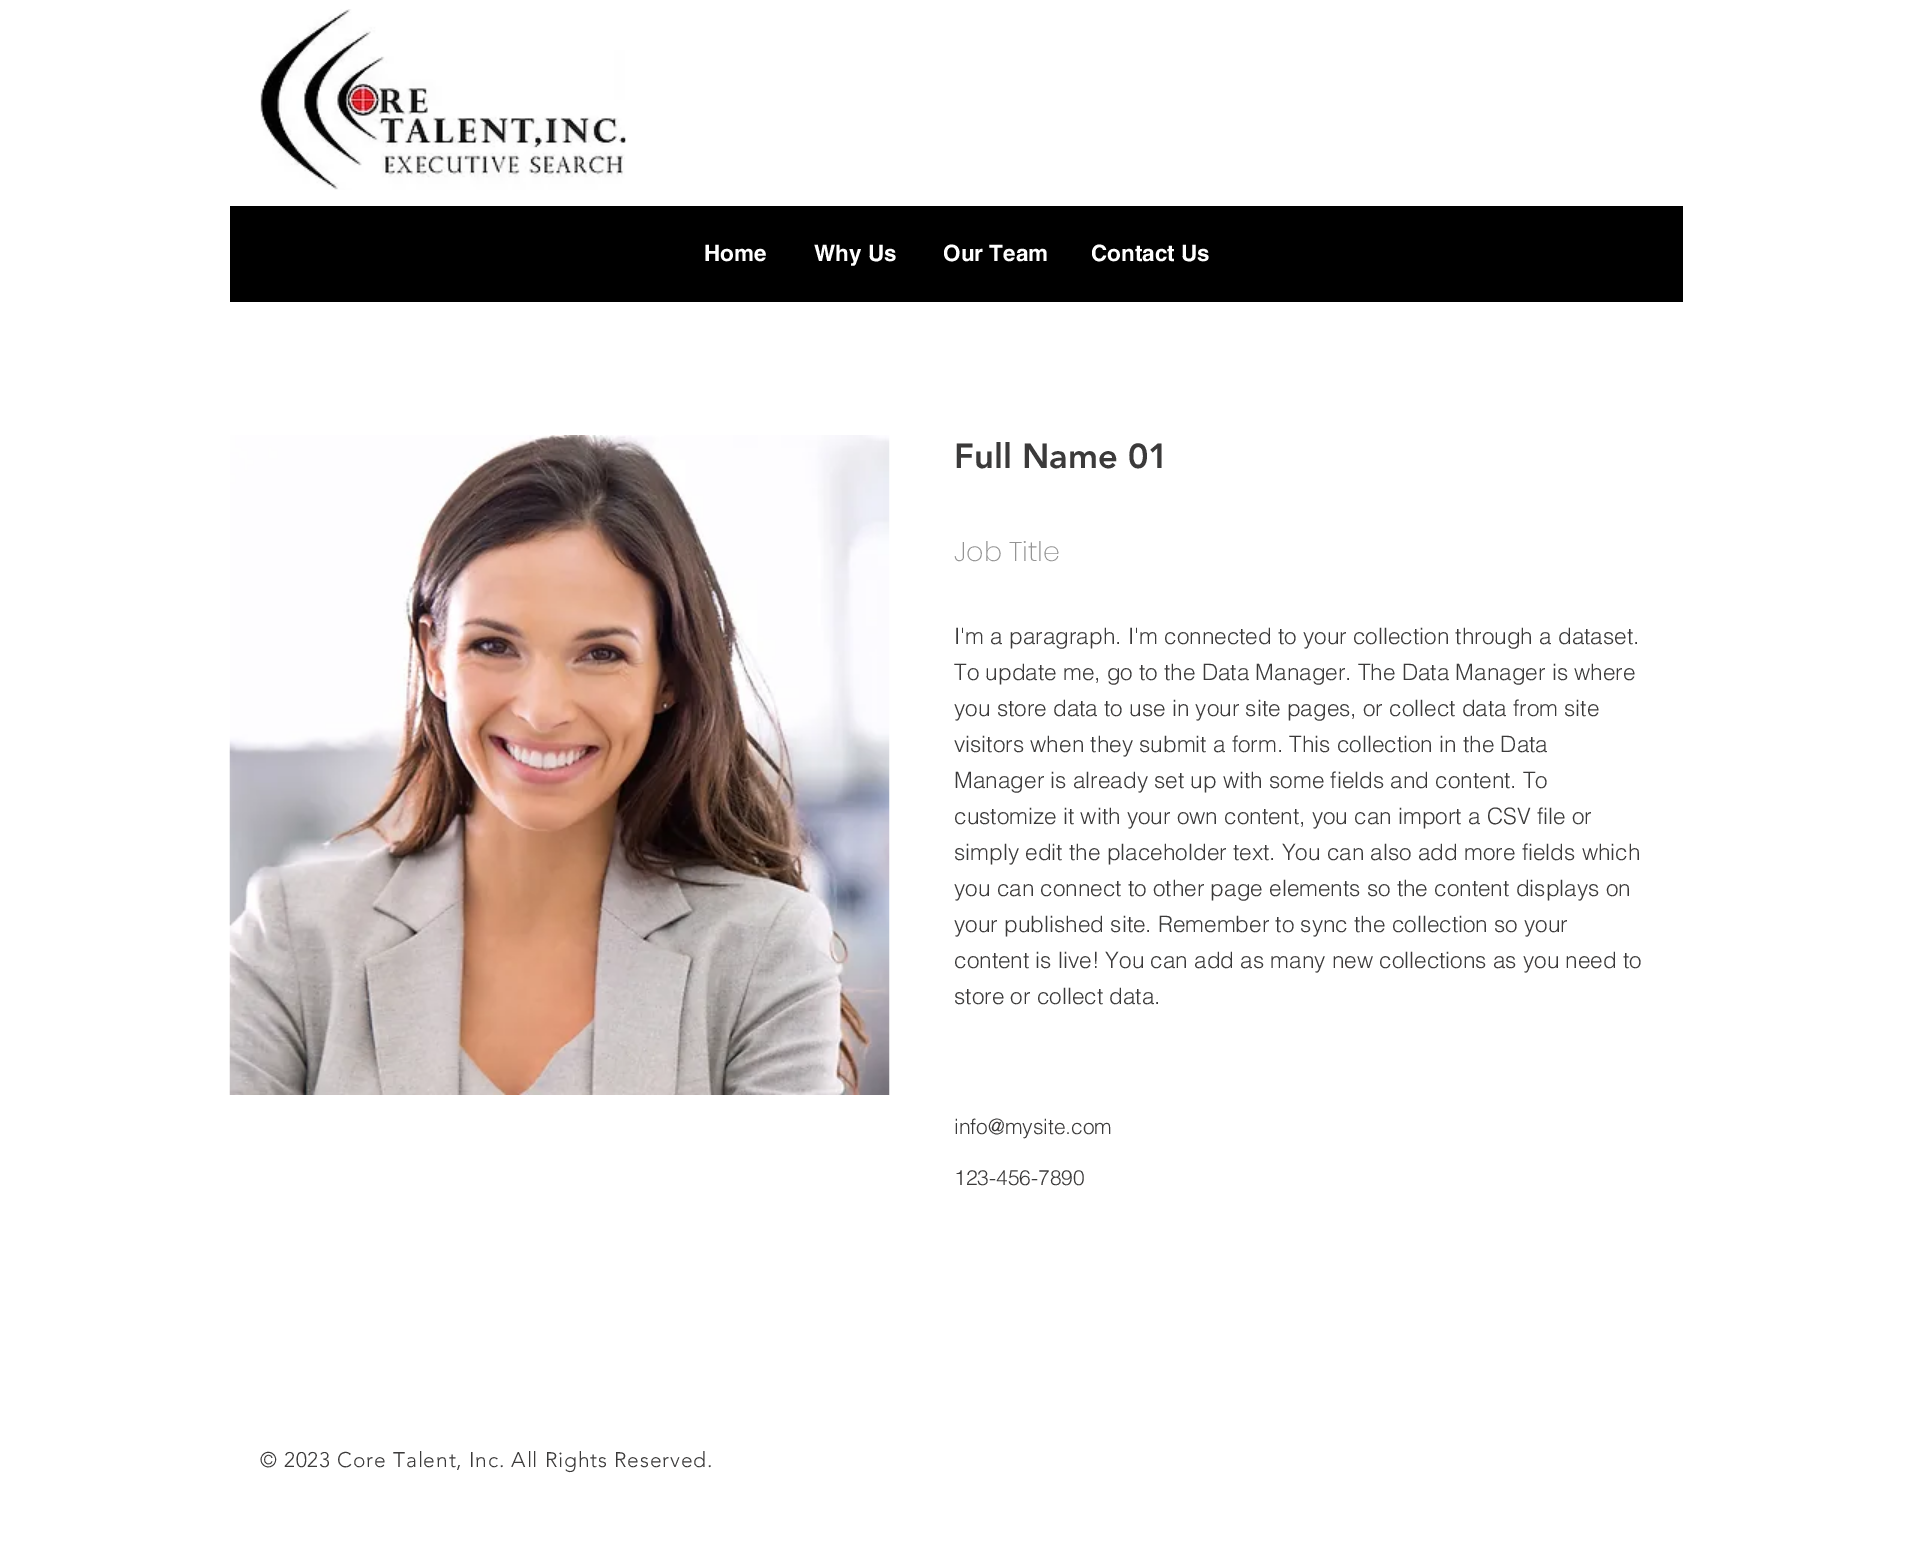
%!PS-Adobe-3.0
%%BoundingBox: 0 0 1929 1558
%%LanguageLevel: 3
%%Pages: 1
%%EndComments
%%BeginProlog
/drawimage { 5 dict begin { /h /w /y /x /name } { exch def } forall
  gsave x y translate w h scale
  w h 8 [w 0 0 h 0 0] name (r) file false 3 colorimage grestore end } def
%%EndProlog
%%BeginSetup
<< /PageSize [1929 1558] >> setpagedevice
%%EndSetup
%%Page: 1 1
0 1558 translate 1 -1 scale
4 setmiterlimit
1 setgray
0 0 1929 1558 rectfill
(images/1.raw) 260 9 366 181 drawimage
0 setgray
230 206 1453 96 rectfill
(images/2.raw) 229 435 661 660 drawimage
/helvetica-Bold [22.5 0 0 -22.5 0 0] selectfont
1 setgray
704 261 moveto (Home) show
814 261 moveto (Why Us) show
943 261 moveto (Our Team) show
1091 261 moveto (Contact Us) show
/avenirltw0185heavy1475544-Black [34.5 0 0 -34.5 0 0] selectfont
0.231 0.227 0.227 setrgbcolor
954 468 moveto (Full Name 01) show
/Poppins-ExtraLight [27 0 0 -27 0 0] selectfont
0.58 setgray
954 561 moveto (Job Title) show
/helvetica-Light [22.5 0 0 -22.5 0 0] selectfont
0.231 0.227 0.227 setrgbcolor
954 644 moveto (I'm a paragraph. I'm connected to your collection through a dataset.) show
954 680 moveto (To update me, go to the Data Manager. The Data Manager is where) show
954 716 moveto (you store data to use in your site pages, or collect data from site) show
954 752 moveto (visitors when they submit a form. This collection in the Data) show
954 788 moveto (Manager is already set up with some fields and content. To) show
954 824 moveto (customize it with your own content, you can import a CSV file or) show
954 860 moveto (simply edit the placeholder text. You can also add more fields which) show
954 896 moveto (you can connect to other page elements so the content displays on) show
954 932 moveto (your published site. Remember to sync the collection so your) show
954 968 moveto (content is live! You can add as many new collections as you need to) show
954 1004 moveto (store or collect data.) show
/helvetica-Light [21 0 0 -21 0 0] selectfont
954 1134 moveto (info@mysite.com) show
954 1185 moveto (123-456-7890) show
/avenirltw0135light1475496-Light [21 0 0 -21 0 0] selectfont
260 1467 moveto 0.85 0 (© 2023 Core Talent, Inc. All Rights Reserved.) ashow
showpage
%%EOF
